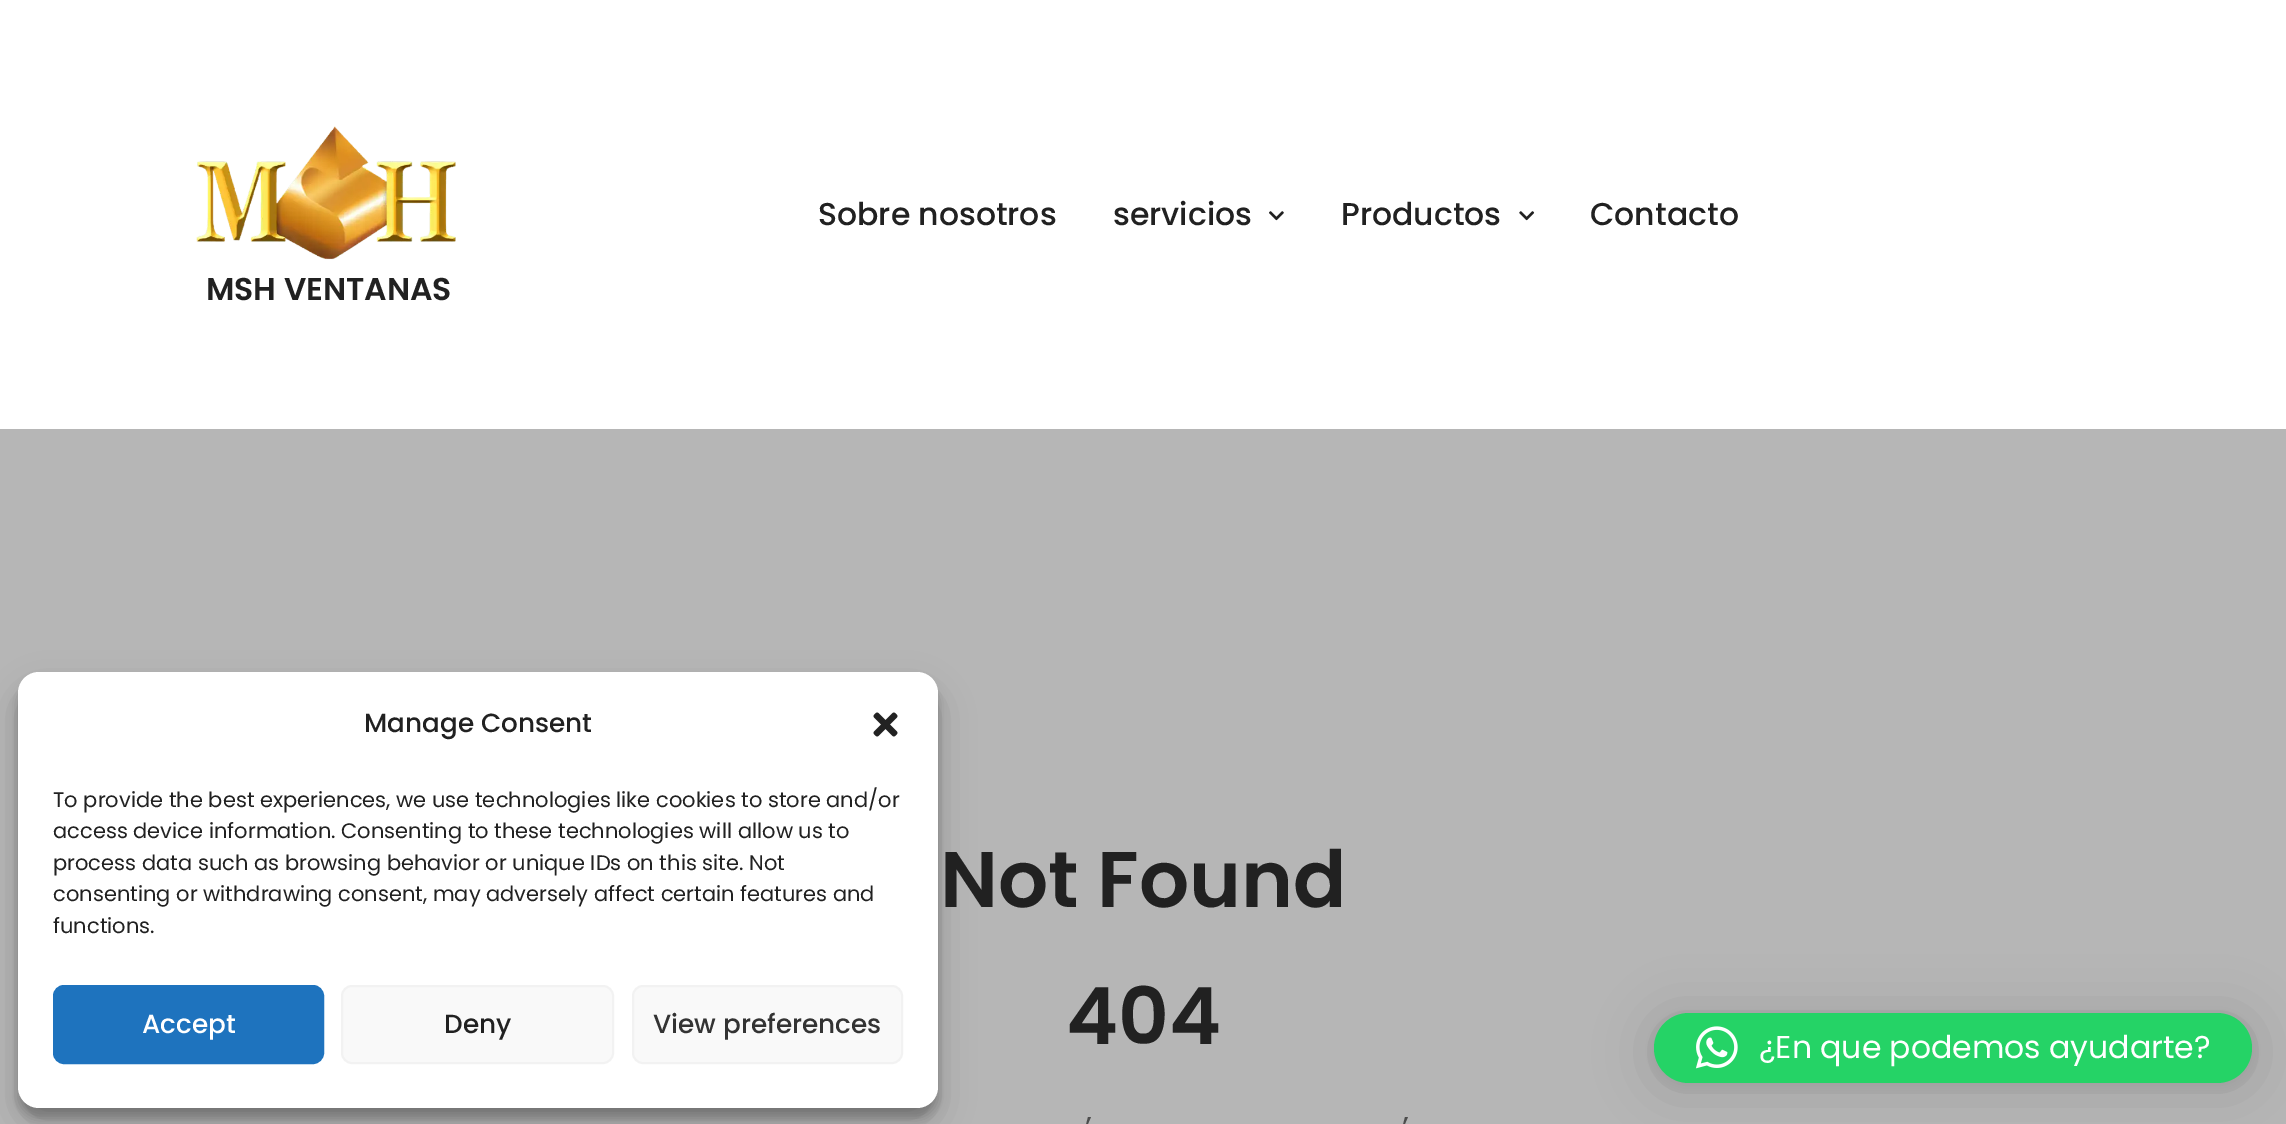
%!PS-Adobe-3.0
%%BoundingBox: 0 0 2286 1124
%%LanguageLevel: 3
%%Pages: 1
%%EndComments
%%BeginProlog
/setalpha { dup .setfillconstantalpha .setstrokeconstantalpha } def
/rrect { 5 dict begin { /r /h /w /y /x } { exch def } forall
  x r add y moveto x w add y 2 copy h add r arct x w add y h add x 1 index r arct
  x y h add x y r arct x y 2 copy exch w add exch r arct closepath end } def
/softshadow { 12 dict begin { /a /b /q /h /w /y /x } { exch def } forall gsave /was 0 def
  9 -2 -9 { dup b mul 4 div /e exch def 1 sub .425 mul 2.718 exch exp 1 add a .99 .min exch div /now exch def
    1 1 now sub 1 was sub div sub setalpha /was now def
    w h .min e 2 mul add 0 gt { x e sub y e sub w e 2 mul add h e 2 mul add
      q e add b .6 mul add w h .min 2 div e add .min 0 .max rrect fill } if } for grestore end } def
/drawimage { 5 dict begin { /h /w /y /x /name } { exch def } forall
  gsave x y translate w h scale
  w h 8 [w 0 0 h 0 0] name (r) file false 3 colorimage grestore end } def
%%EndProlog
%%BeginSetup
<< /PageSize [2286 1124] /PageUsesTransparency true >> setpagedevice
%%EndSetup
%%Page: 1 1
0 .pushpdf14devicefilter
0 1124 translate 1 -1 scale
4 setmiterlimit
1 setgray
0 0 2286 1124 rectfill
(images/1.raw) 1269 211 15 10 drawimage
(images/2.raw) 1519 211 16 10 drawimage
(images/3.raw) 196 126 260 134 drawimage
0.714 setgray
0 429 2286 695 rectfill
0 setgray
18 683 920 435 21 5 0.23 softshadow
18 690 920 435 21 17.5 0.19 softshadow
1 setgray
18 672 920 436 21 rrect fill
(images/4.raw) 873 712 25 25 drawimage
0.118 0.451 0.745 setrgbcolor
54 986 269 77 10 rrect gsave fill grestore
2 setlinewidth
stroke
0.976 setgray
342 986 271 77 10 rrect gsave fill grestore
0.949 setgray
stroke
0.976 setgray
633 986 269 77 10 rrect gsave fill grestore
0.949 setgray
stroke
0 setgray
1654 1017 598 70 35 28 0.16 softshadow
1654 1015 598 70 35 5 0.06 softshadow
0.145 0.827 0.4 setrgbcolor
1654 1013 598 70 35 rrect fill
(images/5.raw) 1695 1026 43 43 drawimage
/Poppins-Medium [31.5 0 0 -31.5 0 0] selectfont
0.129 setgray
818 225 moveto (Sobre nosotros) show
1113 225 moveto (servicios) show
1341 225 moveto (Productos) show
1590 225 moveto (Contacto) show
/Poppins-SemiBold [31.5 0 0 -31.5 0 0] selectfont
206 300 moveto (MSH VENTANAS) show
/Poppins-Medium [26.25 0 0 -26.25 0 0] selectfont
364 732 moveto (Manage Consent) show
/Poppins-Regular [21 0 0 -21 0 0] selectfont
53 807 moveto (To provide the best experiences, we use technologies like cookies to store and/or) show
53 838 moveto (access device information. Consenting to these technologies will allow us to) show
53 870 moveto (process data such as browsing behavior or unique IDs on this site. Not) show
53 901 moveto (consenting or withdrawing consent, may adversely affect certain features and) show
53 933 moveto (functions.) show
/Poppins-Medium [26.25 0 0 -26.25 0 0] selectfont
1 setgray
142 1033 moveto (Accept) show
0.129 setgray
444 1033 moveto (Deny) show
0.2 setgray
653 1033 moveto (View preferences) show
/Poppins-SemiBold [78.75 0 0 -78.75 0 0] selectfont
0.129 setgray
940 907 moveto (Not Found) show
1066 1044 moveto (404) show
/Poppins-Regular [31.5 0 0 -31.5 0 0] selectfont
0.302 setgray
1085 1139 moveto (’) show
1402 1139 moveto (’) show
1 setgray
1759 1058 moveto (¿En que podemos ayudarte?) show
.poppdf14devicefilter showpage
%%EOF
